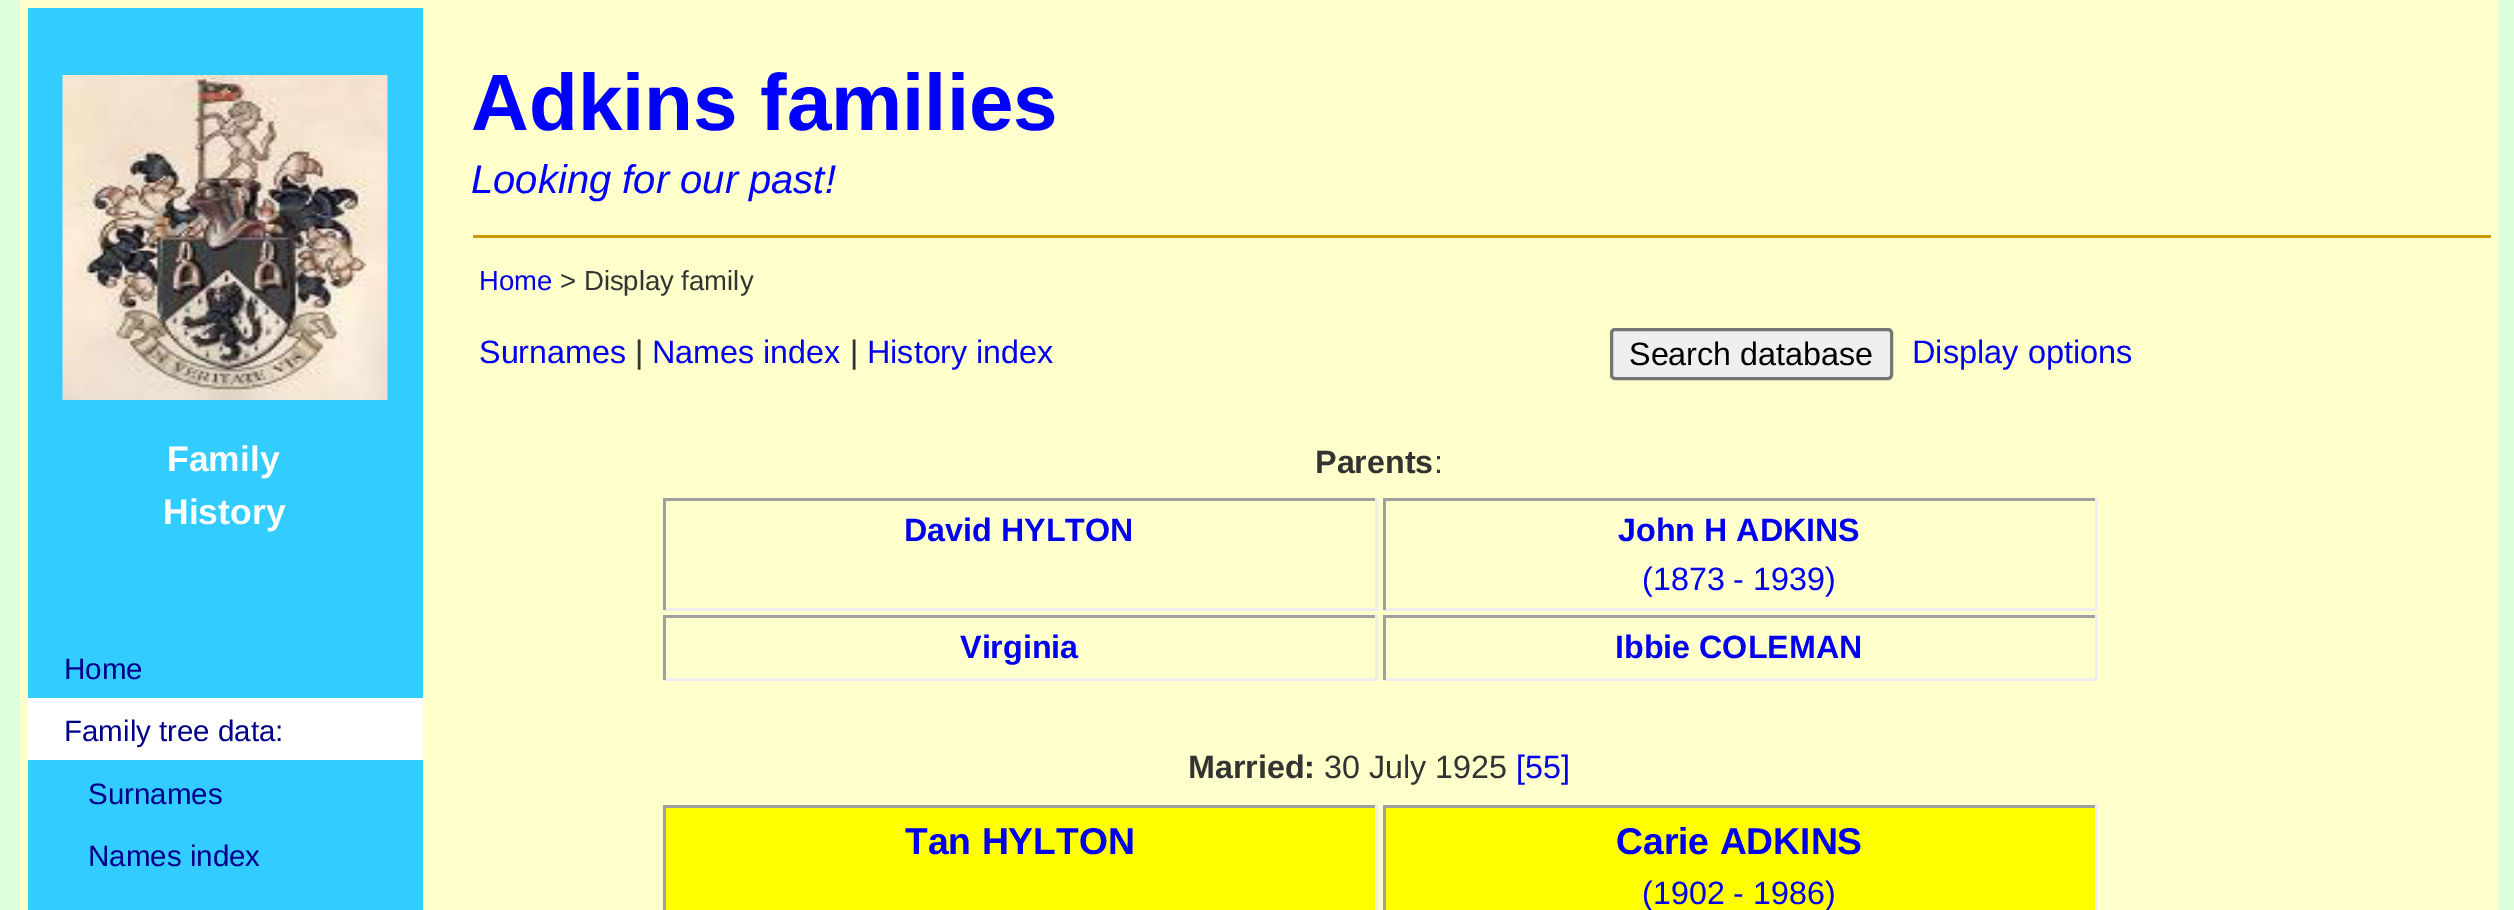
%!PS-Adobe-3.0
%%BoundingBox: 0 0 2514 910
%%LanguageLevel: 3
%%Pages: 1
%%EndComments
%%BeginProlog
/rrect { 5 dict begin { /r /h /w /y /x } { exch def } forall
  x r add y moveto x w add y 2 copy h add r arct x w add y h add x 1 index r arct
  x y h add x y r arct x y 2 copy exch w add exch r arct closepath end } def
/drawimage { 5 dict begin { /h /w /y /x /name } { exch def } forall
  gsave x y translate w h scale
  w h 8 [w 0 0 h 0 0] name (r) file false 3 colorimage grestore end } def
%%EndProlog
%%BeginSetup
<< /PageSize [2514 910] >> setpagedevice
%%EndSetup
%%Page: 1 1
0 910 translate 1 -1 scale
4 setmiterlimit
0.867 1 0.867 setrgbcolor
0 0 2514 910 rectfill
1 1 0.8 setrgbcolor
20 0 2478 910 rectfill
0.2 0.8 1 setrgbcolor
28 8 395 902 rectfill
(images/1.raw) 62 75 326 325 drawimage
1 setgray
28 698 395 62 rectfill
0.8 0.6 0 setrgbcolor
473 235 2018 3 rectfill
0.937 setgray
1611.5 329.5 280 49 3.5 rrect gsave fill grestore
0.463 setgray
3 setlinewidth
stroke
0.624 setgray
663 498 715 3 rectfill
0.933 setgray
1375 498 3 112 rectfill
663 608 715 3 rectfill
0.624 setgray
663 498 3 112 rectfill
1383 498 715 3 rectfill
0.933 setgray
2095 498 3 112 rectfill
1383 608 715 3 rectfill
0.624 setgray
1383 498 3 112 rectfill
663 615 715 3 rectfill
0.933 setgray
1375 615 3 65 rectfill
663 678 715 3 rectfill
0.624 setgray
663 615 3 65 rectfill
1383 615 715 3 rectfill
0.933 setgray
2095 615 3 65 rectfill
1383 678 715 3 rectfill
0.624 setgray
1383 615 3 65 rectfill
1 1 0 setrgbcolor
666 808 709 102 rectfill
0.624 setgray
663 805 715 3 rectfill
0.933 setgray
1375 805 3 105 rectfill
0.624 setgray
663 805 3 105 rectfill
1 1 0 setrgbcolor
1386 808 709 102 rectfill
0.624 setgray
1383 805 715 3 rectfill
0.933 setgray
2095 805 3 105 rectfill
0.624 setgray
1383 805 3 105 rectfill
/LiberationSans-Bold [35.5 0 0 -35.5 0 0] selectfont
1 setgray
167 471 moveto (Family) show
163 524 moveto (History) show
/LiberationSans-Regular [29.5 0 0 -29.5 0 0] selectfont
0 0 0.545 setrgbcolor
64 679 moveto (Home) show
64 741 moveto (Family tree data:) show
88 804 moveto (Surnames) show
88 866 moveto (Names index) show
/LiberationSans-Bold [80 0 0 -80 0 0] selectfont
0 0 1 setrgbcolor
471 130 moveto (Adkins families) show
/LiberationSans-Italic [40 0 0 -40 0 0] selectfont
471 193 moveto (Looking for our past!) show
/LiberationSans-Regular [27.5 0 0 -27.5 0 0] selectfont
0 0 0.933 setrgbcolor
479 290 moveto (Home) show
0.2 setgray
560 290 moveto (> Display family) show
/LiberationSans-Regular [32.25 0 0 -32.25 0 0] selectfont
0 0 0.933 setrgbcolor
479 363 moveto (Surnames) show
0.2 setgray
635 363 moveto (|) show
0 0 0.933 setrgbcolor
652 363 moveto (Names index) show
0.2 setgray
850 363 moveto (|) show
0 0 0.933 setrgbcolor
867 363 moveto (History index) show
0 setgray
1629 365 moveto (Search database) show
/LiberationSans-Regular [32.5 0 0 -32.5 0 0] selectfont
0 0 0.933 setrgbcolor
1912 363 moveto (Display options) show
/LiberationSans-Bold [32.25 0 0 -32.25 0 0] selectfont
0.2 setgray
1315 473 moveto (Parents) show
/LiberationSans-Regular [32.25 0 0 -32.25 0 0] selectfont
1434 473 moveto (:) show
/LiberationSans-Bold [32.25 0 0 -32.25 0 0] selectfont
0 0 0.933 setrgbcolor
904 541 moveto (David HYLTON) show
1618 541 moveto (John H ADKINS) show
/LiberationSans-Regular [32.25 0 0 -32.25 0 0] selectfont
1642 590 moveto (\(1873 - 1939\)) show
/LiberationSans-Bold [32.25 0 0 -32.25 0 0] selectfont
960 658 moveto (Virginia) show
1615 658 moveto (Ibbie COLEMAN) show
0.2 setgray
1188 778 moveto (Married:) show
/LiberationSans-Regular [32.25 0 0 -32.25 0 0] selectfont
1324 778 moveto (30 July 1925) show
0 0 0.933 setrgbcolor
1516 778 moveto ([55]) show
/LiberationSans-Bold [37.25 0 0 -37.25 0 0] selectfont
905 854 moveto (Tan HYLTON) show
1616 854 moveto (Carie ADKINS) show
/LiberationSans-Regular [32.25 0 0 -32.25 0 0] selectfont
1642 904 moveto (\(1902 - 1986\)) show
showpage
%%EOF
